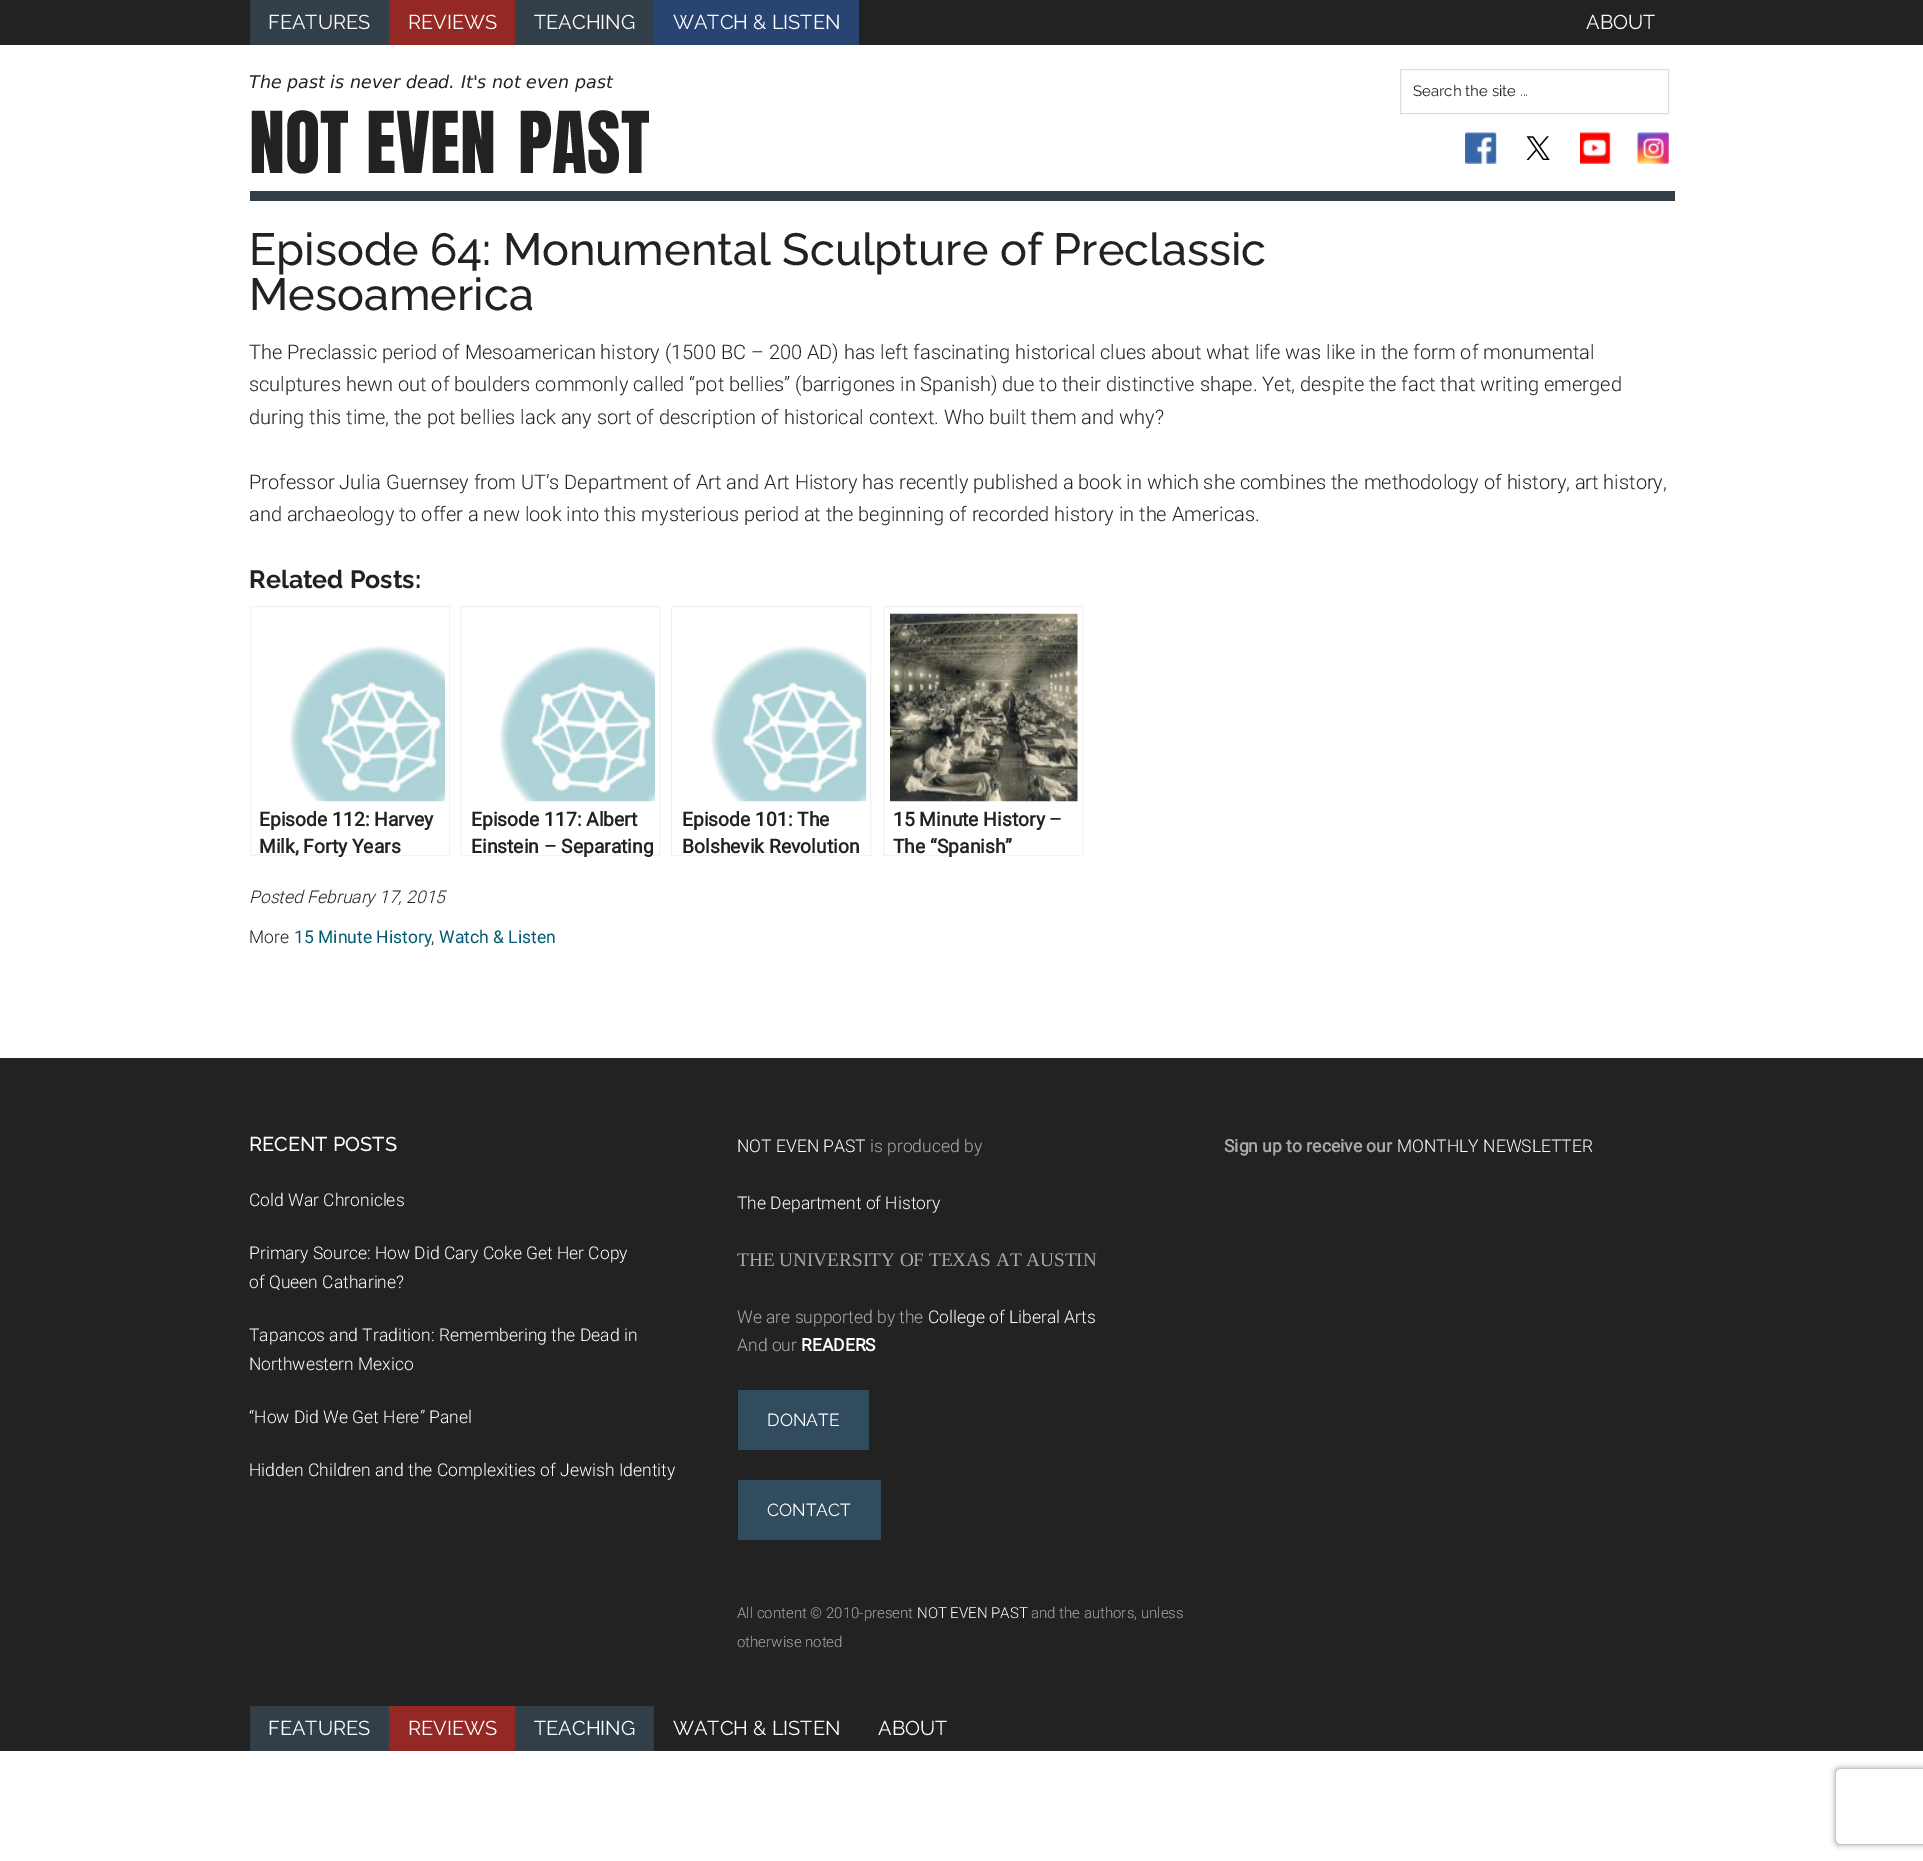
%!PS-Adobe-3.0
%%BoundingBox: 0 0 1923 1861
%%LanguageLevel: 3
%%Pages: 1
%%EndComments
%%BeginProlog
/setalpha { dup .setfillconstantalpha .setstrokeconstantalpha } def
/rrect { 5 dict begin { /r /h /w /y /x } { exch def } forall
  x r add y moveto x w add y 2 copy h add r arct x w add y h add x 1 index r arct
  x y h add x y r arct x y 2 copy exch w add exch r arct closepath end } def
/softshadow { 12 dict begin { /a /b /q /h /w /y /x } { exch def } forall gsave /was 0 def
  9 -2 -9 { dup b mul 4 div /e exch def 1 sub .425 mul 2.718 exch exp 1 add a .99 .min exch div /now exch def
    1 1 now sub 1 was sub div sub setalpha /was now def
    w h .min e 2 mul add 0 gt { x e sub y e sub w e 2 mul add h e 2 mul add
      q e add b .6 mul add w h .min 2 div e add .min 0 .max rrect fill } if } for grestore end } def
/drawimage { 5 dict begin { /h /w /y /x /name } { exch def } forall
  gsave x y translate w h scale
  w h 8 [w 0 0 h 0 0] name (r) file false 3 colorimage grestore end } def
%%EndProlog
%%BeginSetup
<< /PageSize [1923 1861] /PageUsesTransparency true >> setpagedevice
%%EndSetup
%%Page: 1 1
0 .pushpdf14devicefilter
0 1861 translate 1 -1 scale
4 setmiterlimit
1 setgray
0 0 1923 1861 rectfill
0.133 setgray
0 0 1923 45 rectfill
0.2 0.247 0.282 setrgbcolor
250 0 139 45 rectfill
0.576 0.157 0.141 setrgbcolor
389 0 126 45 rectfill
0.2 0.247 0.282 setrgbcolor
515 0 139 45 rectfill
0.153 0.267 0.447 setrgbcolor
654 0 205 45 rectfill
0.2 0.247 0.282 setrgbcolor
250 191 1425 10 rectfill
0.867 setgray
1400.5 69.5 268 44 rectstroke
(images/1.raw) 1465 132 32 32 drawimage
(images/2.raw) 1526 136 24 24 drawimage
(images/3.raw) 1580 132 31 32 drawimage
(images/4.raw) 1637 132 32 32 drawimage
0.949 setgray
250.5 606.5 199 249 rectstroke
(images/5.raw) 290 646 155 156 drawimage
460.5 606.5 199 249 rectstroke
(images/6.raw) 500 646 155 156 drawimage
671.5 606.5 199 249 rectstroke
(images/7.raw) 711 646 156 156 drawimage
883.5 606.5 199 249 rectstroke
(images/8.raw) 890 613 188 189 drawimage
0.133 setgray
0 1058 1923 693 rectfill
0.192 0.294 0.373 setrgbcolor
738 1390 131 60 rectfill
738 1480 143 60 rectfill
0.2 0.247 0.282 setrgbcolor
250 1706 139 45 rectfill
0.576 0.157 0.141 setrgbcolor
389 1706 126 45 rectfill
0.2 0.247 0.282 setrgbcolor
515 1706 139 45 rectfill
gsave
newpath 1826 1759 moveto 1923 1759 lineto 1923 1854 lineto 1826 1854 lineto closepath 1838.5 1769 moveto 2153.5 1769 lineto 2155 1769 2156 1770 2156 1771.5 curveto 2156 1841.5 lineto 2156 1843 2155 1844 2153.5 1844 curveto 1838.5 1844 lineto 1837 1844 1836 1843 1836 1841.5 curveto 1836 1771.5 lineto 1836 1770 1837 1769 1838.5 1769 curveto closepath eoclip newpath
0.502 setgray
1836 1769 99 75 2.5 3 1 softshadow
grestore
/Raleway-Regular [20 0 0 -20 0 0] selectfont
1 setgray
268 29 moveto (FEATURES) show
408 29 moveto (REVIEWS) show
534 29 moveto (TEACHING) show
673 29 moveto (WATCH & LISTEN) show
1586 29 moveto (ABOUT) show
/DejaVuSans-Italic [17.5 0 0 -17.5 0 0] selectfont
0.133 setgray
249 88 moveto (The past is never dead. It's not even past) show
/Anton-Regular [72.5 0 0 -72.5 0 0] selectfont
249 173 moveto (NOT EVEN) show
518 173 moveto (PAST) show
/Raleway-Regular [15 0 0 -15 0 0] selectfont
1413 96 moveto (Search the site ...) show
/Raleway-Medium [45 0 0 -45 0 0] selectfont
249 265 moveto (Episode 64: Monumental Sculpture of Preclassic) show
249 310 moveto (Mesoamerica) show
/Roboto-Light [20 0 0 -20 0 0] selectfont
249 359 moveto (The Preclassic period of Mesoamerican history \(1500 BC – 200 AD\) has left fascinating historical clues about what life was like in the form of monumental) show
249 391 moveto (sculptures hewn out of boulders commonly called “pot bellies” \(barrigones in Spanish\) due to their distinctive shape. Yet, despite the fact that writing emerged) show
249 424 moveto (during this time, the pot bellies lack any sort of description of historical context. Who built them and why?) show
249 489 moveto (Professor Julia Guernsey from UT’s Department of Art and Art History has recently published a book in which she combines the methodology of history, art history,) show
249 521 moveto (and archaeology to offer a new look into this mysterious period at the beginning of recorded history in the Americas.) show
/Raleway-Bold [25 0 0 -25 0 0] selectfont
249 588 moveto (Related Posts:) show
/Roboto-Bold [19.25 0 0 -19.25 0 0] selectfont
259 826 moveto (Episode 112: Harvey) show
259 853 moveto (Milk, Forty Years) show
471 826 moveto (Episode 117: Albert) show
471 853 moveto (Einstein – Separating) show
682 826 moveto (Episode 101: The) show
682 853 moveto (Bolshevik Revolution) show
893 826 moveto (15 Minute History –) show
893 853 moveto (The “Spanish”) show
/Roboto-LightItalic [17.5 0 0 -17.5 0 0] selectfont
249 903 moveto (Posted February 17, 2015) show
/Roboto-Light [17.5 0 0 -17.5 0 0] selectfont
249 943 moveto (More) show
/Roboto-Regular [17.5 0 0 -17.5 0 0] selectfont
0.008 0.357 0.443 setrgbcolor
294 943 moveto (15 Minute History) show
/Roboto-Light [17.5 0 0 -17.5 0 0] selectfont
0.133 setgray
431 943 moveto (,) show
/Roboto-Regular [17.5 0 0 -17.5 0 0] selectfont
0.008 0.357 0.443 setrgbcolor
439 943 moveto (Watch & Listen) show
/Raleway-Medium [20 0 0 -20 0 0] selectfont
1 setgray
249 1151 moveto (RECENT POSTS) show
/Roboto-Light [17.5 0 0 -17.5 0 0] selectfont
249 1206 moveto (Cold War Chronicles) show
249 1259 moveto (Primary Source: How Did Cary Coke Get Her Copy) show
249 1288 moveto (of Queen Catharine?) show
249 1341 moveto (Tapancos and Tradition: Remembering the Dead in) show
249 1370 moveto (Northwestern Mexico) show
249 1423 moveto (“How Did We Get Here” Panel) show
249 1476 moveto (Hidden Children and the Complexities of Jewish Identity) show
737 1152 moveto (NOT EVEN PAST) show
0.667 setgray
870 1152 moveto (is produced by) show
1 setgray
737 1209 moveto (The Department of History) show
/LiberationSerif-Regular [19.25 0 0 -19.25 0 0] selectfont
0.667 setgray
737 1266 moveto (THE UNIVERSITY OF TEXAS AT AUSTIN) show
/Roboto-Light [17.5 0 0 -17.5 0 0] selectfont
737 1323 moveto (We are supported by the) show
1 setgray
928 1323 moveto (College of Liberal Arts) show
0.667 setgray
737 1351 moveto (And our) show
/Roboto-Bold [17.5 0 0 -17.5 0 0] selectfont
1 setgray
801 1351 moveto (READERS) show
/Raleway-Regular [17.5 0 0 -17.5 0 0] selectfont
767 1426 moveto (DONATE) show
767 1516 moveto (CONTACT) show
/Roboto-Light [15 0 0 -15 0 0] selectfont
0.667 setgray
737 1618 moveto (All content © 2010-present) show
1 setgray
917 1618 moveto (NOT EVEN PAST) show
0.667 setgray
1031 1618 moveto (and the authors, unless) show
737 1647 moveto (otherwise noted) show
/Roboto-Bold [17.5 0 0 -17.5 0 0] selectfont
1224 1152 moveto (Sign up to receive our) show
/Roboto-Light [17.5 0 0 -17.5 0 0] selectfont
1 setgray
1397 1152 moveto (MONTHLY NEWSLETTER) show
/Raleway-Regular [20 0 0 -20 0 0] selectfont
268 1735 moveto (FEATURES) show
408 1735 moveto (REVIEWS) show
534 1735 moveto (TEACHING) show
673 1735 moveto (WATCH & LISTEN) show
878 1735 moveto (ABOUT) show
.poppdf14devicefilter showpage
%%EOF
